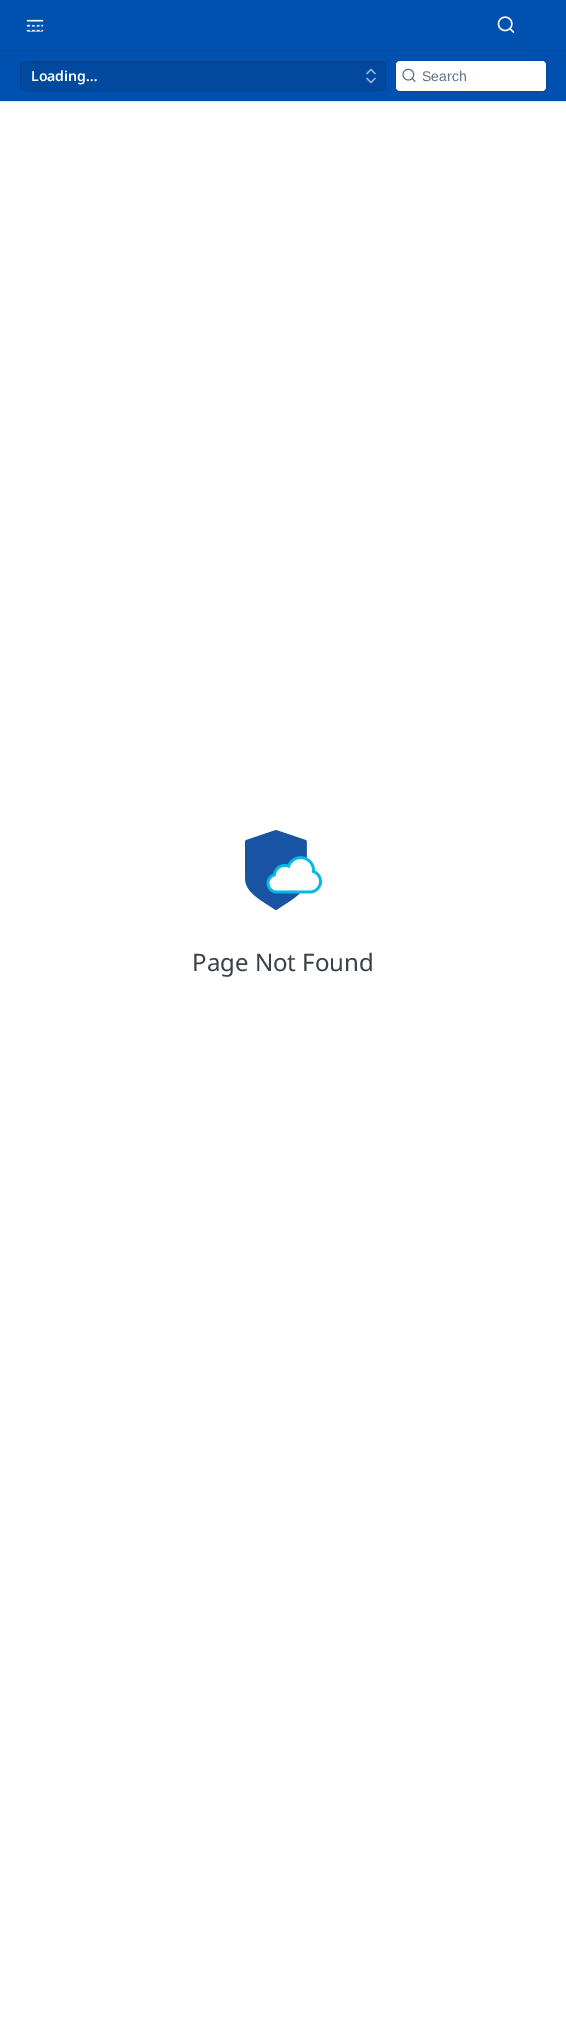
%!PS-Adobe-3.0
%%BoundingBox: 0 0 566 2032
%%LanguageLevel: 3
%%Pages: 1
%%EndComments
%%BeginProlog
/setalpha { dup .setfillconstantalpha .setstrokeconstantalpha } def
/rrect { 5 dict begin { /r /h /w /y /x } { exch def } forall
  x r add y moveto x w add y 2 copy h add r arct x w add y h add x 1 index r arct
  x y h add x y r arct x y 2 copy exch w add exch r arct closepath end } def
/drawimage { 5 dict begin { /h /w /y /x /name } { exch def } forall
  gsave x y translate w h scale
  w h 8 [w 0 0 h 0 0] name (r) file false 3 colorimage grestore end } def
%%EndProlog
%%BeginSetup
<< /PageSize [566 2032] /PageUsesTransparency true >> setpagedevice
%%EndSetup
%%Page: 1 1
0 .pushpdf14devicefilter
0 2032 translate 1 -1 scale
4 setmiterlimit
1 setgray
0 0 566 2032 rectfill
0.902 setgray
0 101 566 1 rectfill
0 0.318 0.686 setrgbcolor
0 0 566 101 rectfill
0 0.286 0.62 setrgbcolor
0 50 566 1 rectfill
(images/1.raw) 26 19 18 13 drawimage
(images/2.raw) 497 16 18 17 drawimage
20 61 366 30 4 rrect fill
0.1 setalpha
0 setgray
20.5 61.5 365 29 3.5 rrect stroke
1 setalpha
0.6 0.714 0.847 setrgbcolor
1.3 setlinewidth
1 setlinecap
1 setlinejoin
newpath 367 78.5 moveto 371 82.5 lineto 375 78.5 lineto 375 73.5 moveto 371 69.5 lineto 367 73.5 lineto stroke
0 0.286 0.62 setrgbcolor
1 setlinewidth
0 setlinecap
0 setlinejoin
395.5 60.5 151 31 4.5 rrect stroke
1 setgray
396 61 150 30 4 rrect fill
(images/3.raw) 402 68 14 14 drawimage
(images/4.raw) 245 830 77 80 drawimage
/NotoSans-SemiBold [14 0 0 -14 0 0] selectfont
0.047 0.349 0.702 setrgbcolor
29 31 moveto (m) show
1 setgray
31 81 moveto (Loading…) show
/LiberationSans-Regular [14 0 0 -14 0 0] selectfont
0.388 0.447 0.533 setrgbcolor
422 81 moveto (Search) show
/NotoSans-Regular [24 0 0 -24 0 0] selectfont
0.22 0.259 0.282 setrgbcolor
192 971 moveto (Page Not Found) show
.poppdf14devicefilter showpage
%%EOF
